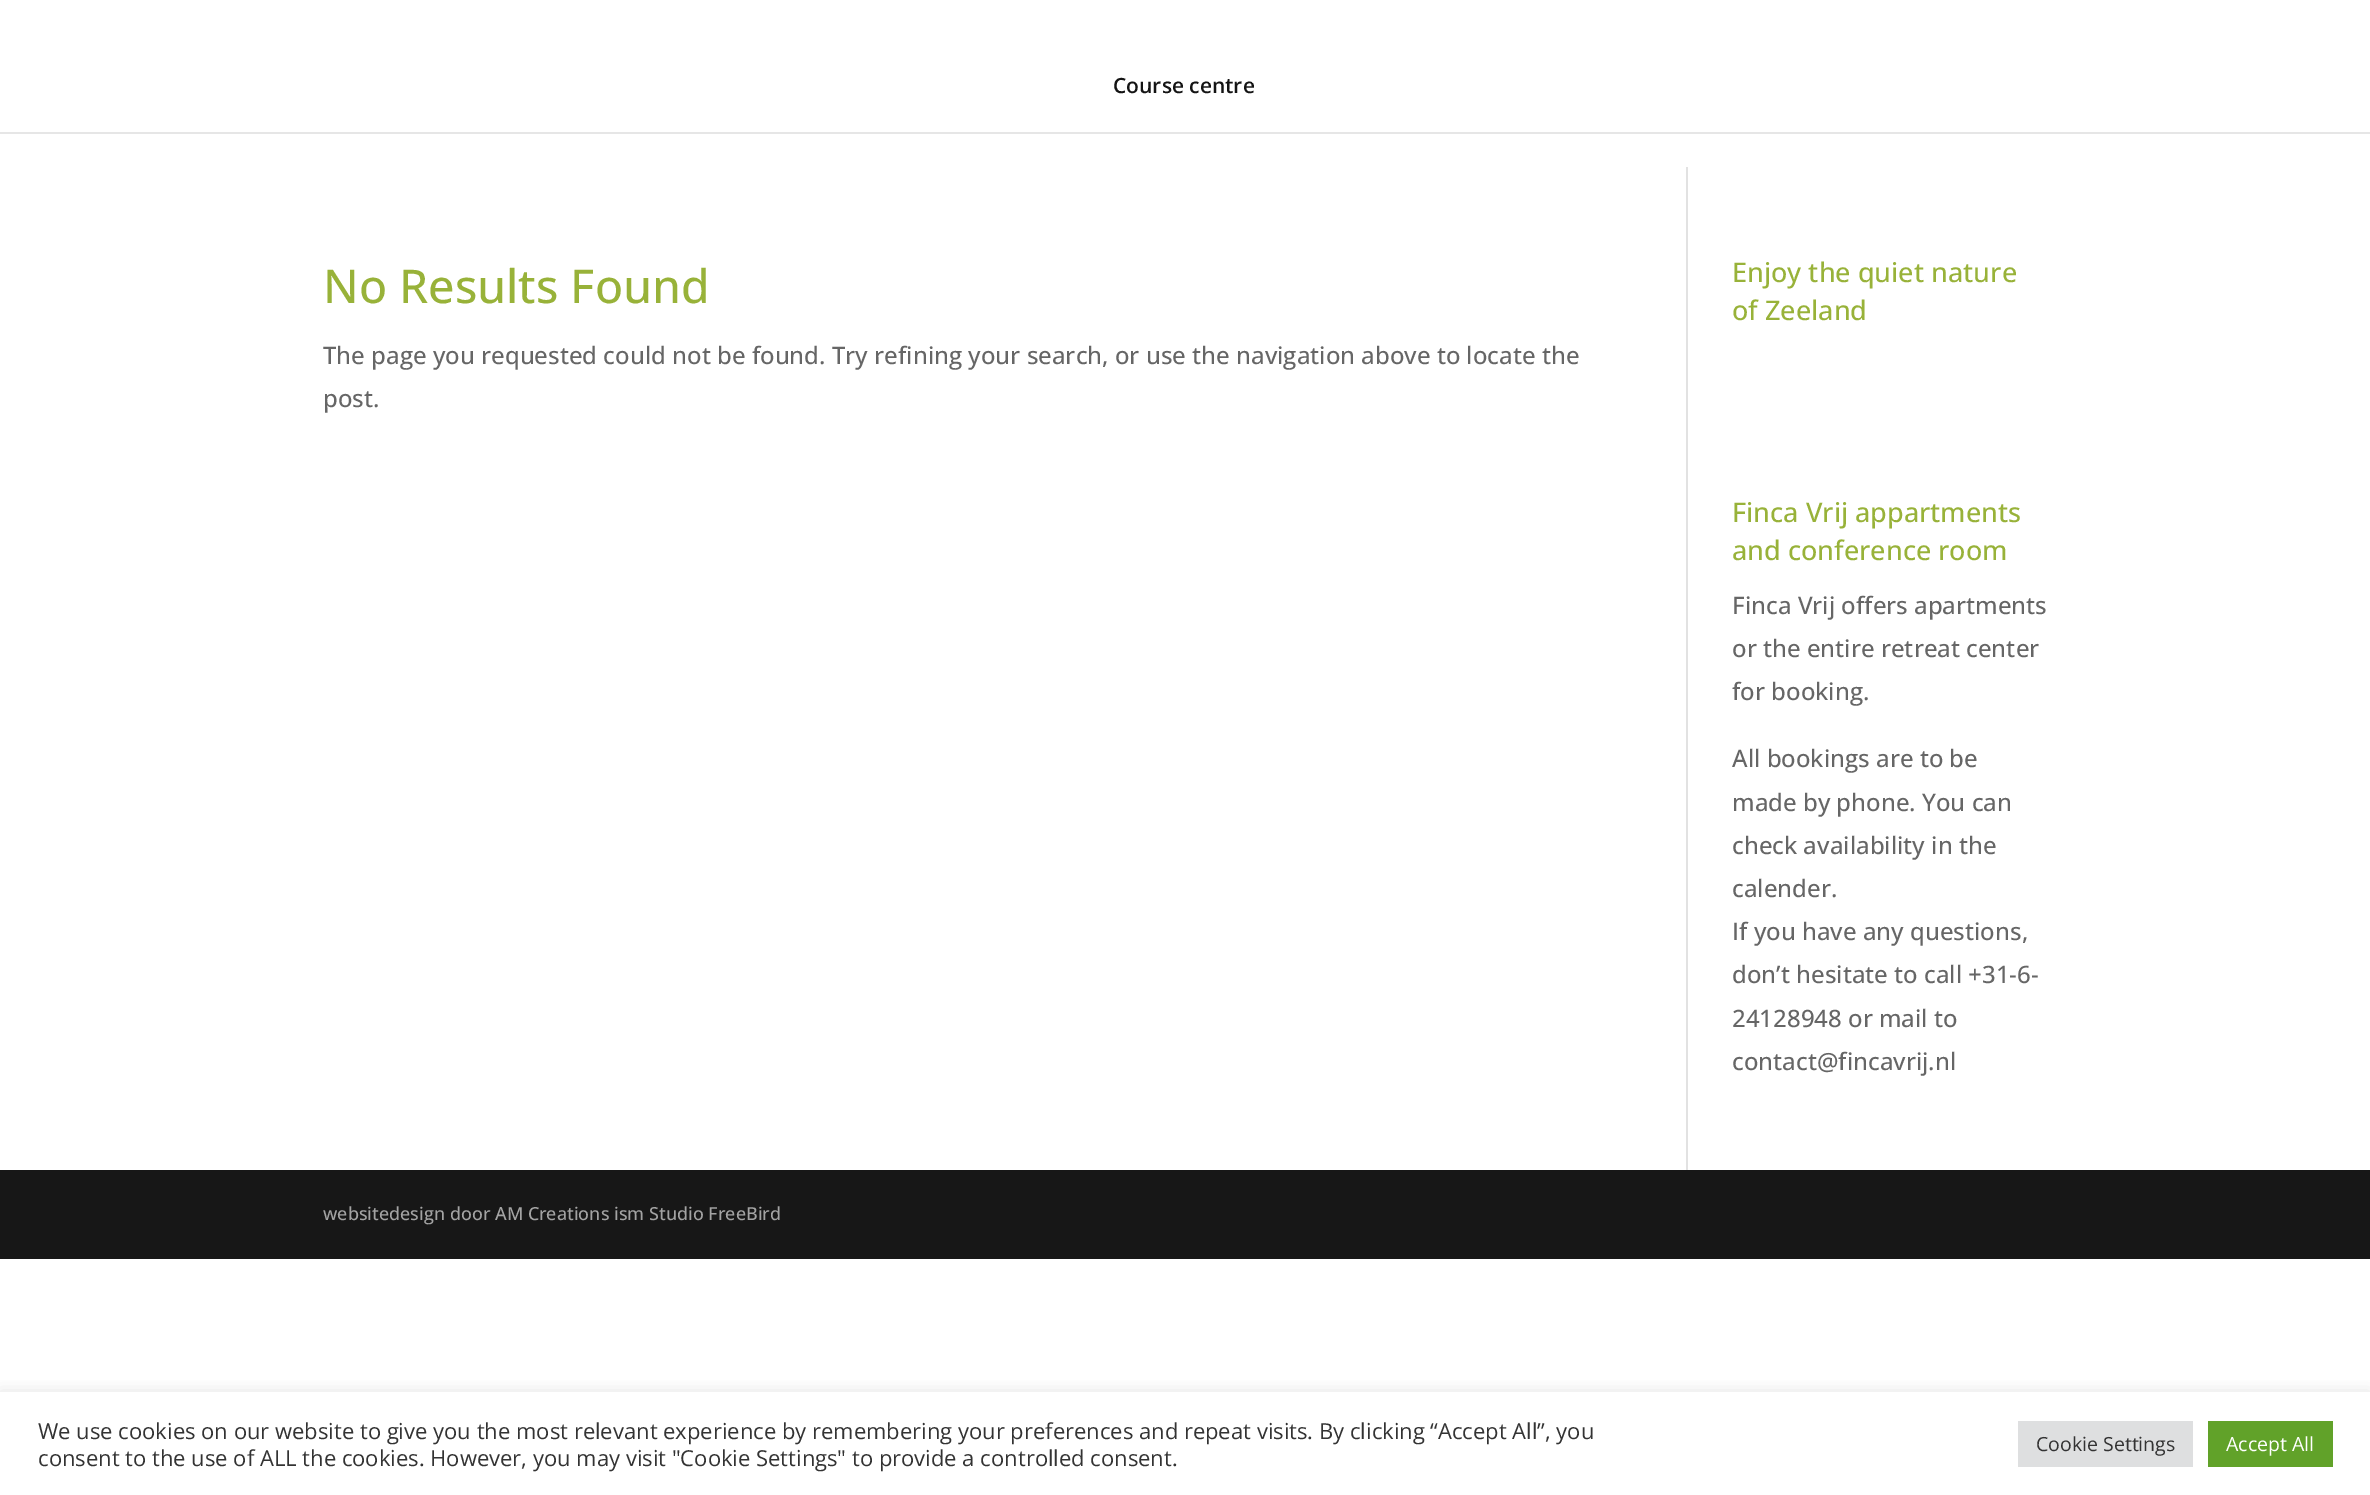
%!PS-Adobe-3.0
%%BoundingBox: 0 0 2370 1495
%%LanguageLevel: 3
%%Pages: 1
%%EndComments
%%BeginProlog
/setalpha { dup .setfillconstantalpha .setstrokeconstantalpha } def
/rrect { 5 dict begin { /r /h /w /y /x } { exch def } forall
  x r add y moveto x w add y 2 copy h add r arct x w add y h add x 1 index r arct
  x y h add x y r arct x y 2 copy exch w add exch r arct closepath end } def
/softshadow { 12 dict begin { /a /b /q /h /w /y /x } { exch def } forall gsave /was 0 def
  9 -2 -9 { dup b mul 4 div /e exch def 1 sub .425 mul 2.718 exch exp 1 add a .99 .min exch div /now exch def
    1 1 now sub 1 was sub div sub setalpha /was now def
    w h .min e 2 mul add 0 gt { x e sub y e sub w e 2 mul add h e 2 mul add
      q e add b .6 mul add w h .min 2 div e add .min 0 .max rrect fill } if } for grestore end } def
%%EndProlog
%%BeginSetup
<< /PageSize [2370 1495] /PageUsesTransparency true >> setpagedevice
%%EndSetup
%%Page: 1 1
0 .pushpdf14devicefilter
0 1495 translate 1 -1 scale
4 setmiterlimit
1 setgray
0 0 2370 1495 rectfill
0.902 setgray
0 132 2370 2 rectfill
0.886 setgray
1686 167 2 1003 rectfill
0.09 setgray
0 1170 2370 89 rectfill
gsave
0 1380 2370 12 rectclip
0.675 0.671 0.671 setrgbcolor
0 1391 2370 103 0 7.5 0.3 softshadow
grestore
0.871 0.875 0.878 setrgbcolor
2018 1421 175 46 rectfill
0.38 0.635 0.161 setrgbcolor
2208 1421 125 46 rectfill
/OpenSans-SemiBold [21 0 0 -21 0 0] selectfont
0.078 setgray
1113 93 moveto (Course centre) show
/OpenSans-Medium [46.5 0 0 -46.5 0 0] selectfont
0.596 0.698 0.224 setrgbcolor
323 303 moveto (No Results Found) show
/OpenSans-Medium [24 0 0 -24 0 0] selectfont
0.4 setgray
323 364 moveto (The page you requested could not be found. Try refining your search, or use the navigation above to locate the) show
323 407 moveto (post.) show
/OpenSans-Medium [27 0 0 -27 0 0] selectfont
0.596 0.698 0.224 setrgbcolor
1732 282 moveto (Enjoy the quiet nature) show
1732 320 moveto (of Zeeland) show
1732 522 moveto (Finca Vrij appartments) show
1732 560 moveto (and conference room) show
/OpenSans-Medium [24 0 0 -24 0 0] selectfont
0.4 setgray
1732 614 moveto (Finca Vrij offers apartments) show
1732 657 moveto (or the entire retreat center) show
1732 700 moveto (for booking.) show
1732 767 moveto (All bookings are to be) show
1732 811 moveto (made by phone. You can) show
1732 854 moveto (check availability in the) show
1732 897 moveto (calender.) show
1732 940 moveto (If you have any questions,) show
1732 983 moveto (don’t hesitate to call +31-6-) show
1732 1027 moveto (24128948 or mail to) show
1732 1070 moveto (contact@fincavrij.nl) show
/OpenSans-Medium [18 0 0 -18 0 0] selectfont
0.639 setgray
323 1220 moveto (websitedesign door AM Creations ism Studio FreeBird) show
/OpenSans-Regular [22 0 0 -22 0 0] selectfont
0.2 setgray
38 1439 moveto (We use cookies on our website to give you the most relevant experience by remembering your preferences and repeat visits. By clicking “Accept All”, you) show
38 1466 moveto (consent to the use of ALL the cookies. However, you may visit "Cookie Settings" to provide a controlled consent.) show
/OpenSans-Regular [19.5 0 0 -19.5 0 0] selectfont
2036 1451 moveto (Cookie Settings) show
1 setgray
2226 1451 moveto (Accept All) show
.poppdf14devicefilter showpage
%%EOF
